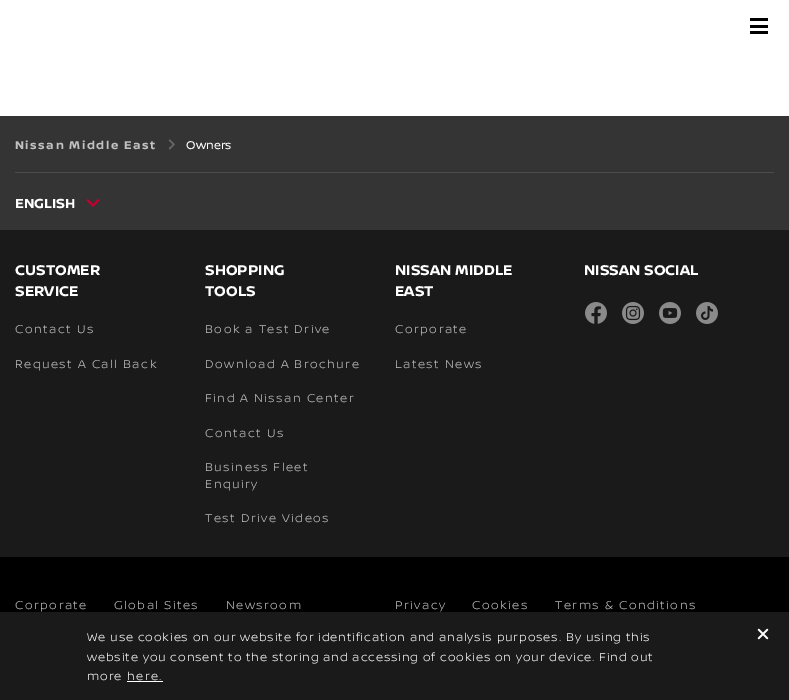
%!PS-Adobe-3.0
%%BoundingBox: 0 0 789 700
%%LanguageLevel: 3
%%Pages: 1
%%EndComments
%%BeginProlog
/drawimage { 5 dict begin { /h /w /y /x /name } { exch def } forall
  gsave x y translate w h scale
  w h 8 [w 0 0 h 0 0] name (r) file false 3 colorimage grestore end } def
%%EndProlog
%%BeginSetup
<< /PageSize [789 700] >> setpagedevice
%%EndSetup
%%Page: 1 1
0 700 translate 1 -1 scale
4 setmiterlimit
1 setgray
0 0 789 700 rectfill
0 setgray
750 18 18 3 rectfill
750 25 18 3 rectfill
750 31 18 3 rectfill
0.204 setgray
0 116 789 114 rectfill
0.298 setgray
15 172 759 1 rectfill
(images/1.raw) 168 139 7 11 drawimage
(images/2.raw) 86 199 14 8 drawimage
0 setgray
0 557 789 55 rectfill
0.102 setgray
0 230 789 327 rectfill
(images/3.raw) 585 302 22 22 drawimage
(images/4.raw) 622 302 22 22 drawimage
(images/5.raw) 659 302 22 22 drawimage
(images/6.raw) 696 302 22 22 drawimage
0 612 789 88 rectfill
1 setgray
127 681 36 1 rectfill
(images/7.raw) 757 628 12 12 drawimage
/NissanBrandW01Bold-Bold [12 0 0 -12 0 0] selectfont
0.757 setgray
15 149 moveto 1.5 0 (Nissan Middle East) ashow
/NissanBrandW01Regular-Regular [12 0 0 -12 0 0] selectfont
1 setgray
186 149 moveto (Owners) show
/NissanBrandW01Bold-Bold [14 0 0 -14 0 0] selectfont
15 208 moveto (ENGLISH) show
/NissanBrandW01Bold-Bold [15 0 0 -15 0 0] selectfont
15 275 moveto (CUSTOMER) show
15 296 moveto (SERVICE) show
/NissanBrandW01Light-Light [12 0 0 -12 0 0] selectfont
0.757 setgray
15 333 moveto 1.5 0 (Contact Us) ashow
15 368 moveto 1.5 0 (Request A Call Back) ashow
/NissanBrandW01Bold-Bold [15 0 0 -15 0 0] selectfont
1 setgray
205 275 moveto (SHOPPING) show
205 296 moveto (TOOLS) show
/NissanBrandW01Light-Light [12 0 0 -12 0 0] selectfont
0.757 setgray
205 333 moveto 1.5 0 (Book a Test Drive) ashow
205 368 moveto 1.5 0 (Download A Brochure) ashow
205 402 moveto 1.5 0 (Find A Nissan Center) ashow
205 437 moveto 1.5 0 (Contact Us) ashow
205 471 moveto 1.5 0 (Business Fleet) ashow
205 488 moveto 1.5 0 (Enquiry) ashow
205 522 moveto 1.5 0 (Test Drive Videos) ashow
/NissanBrandW01Bold-Bold [15 0 0 -15 0 0] selectfont
1 setgray
395 275 moveto (NISSAN MIDDLE) show
395 296 moveto (EAST) show
/NissanBrandW01Light-Light [12 0 0 -12 0 0] selectfont
0.757 setgray
395 333 moveto 1.5 0 (Corporate) ashow
395 368 moveto 1.5 0 (Latest News) ashow
/NissanBrandW01Bold-Bold [15 0 0 -15 0 0] selectfont
1 setgray
584 275 moveto (NISSAN SOCIAL) show
/NissanBrandW01Light-Light [12 0 0 -12 0 0] selectfont
0.757 setgray
15 609 moveto 1.5 0 (Corporate) ashow
114 609 moveto 1.5 0 (Global Sites) ashow
226 609 moveto 1.5 0 (Newsroom) ashow
395 609 moveto 1.5 0 (Privacy) ashow
472 609 moveto 1.5 0 (Cookies) ashow
555 609 moveto 1.5 0 (Terms & Conditions) ashow
1 setgray
87 641 moveto 0.9 0 (We use cookies on our website for identification and analysis purposes. By using this) ashow
87 661 moveto 0.9 0 (website you consent to the storing and accessing of cookies on your device. Find out) ashow
87 680 moveto 0.9 0 (more) ashow
127 680 moveto 1.5 0 (here.) ashow
showpage
%%EOF
